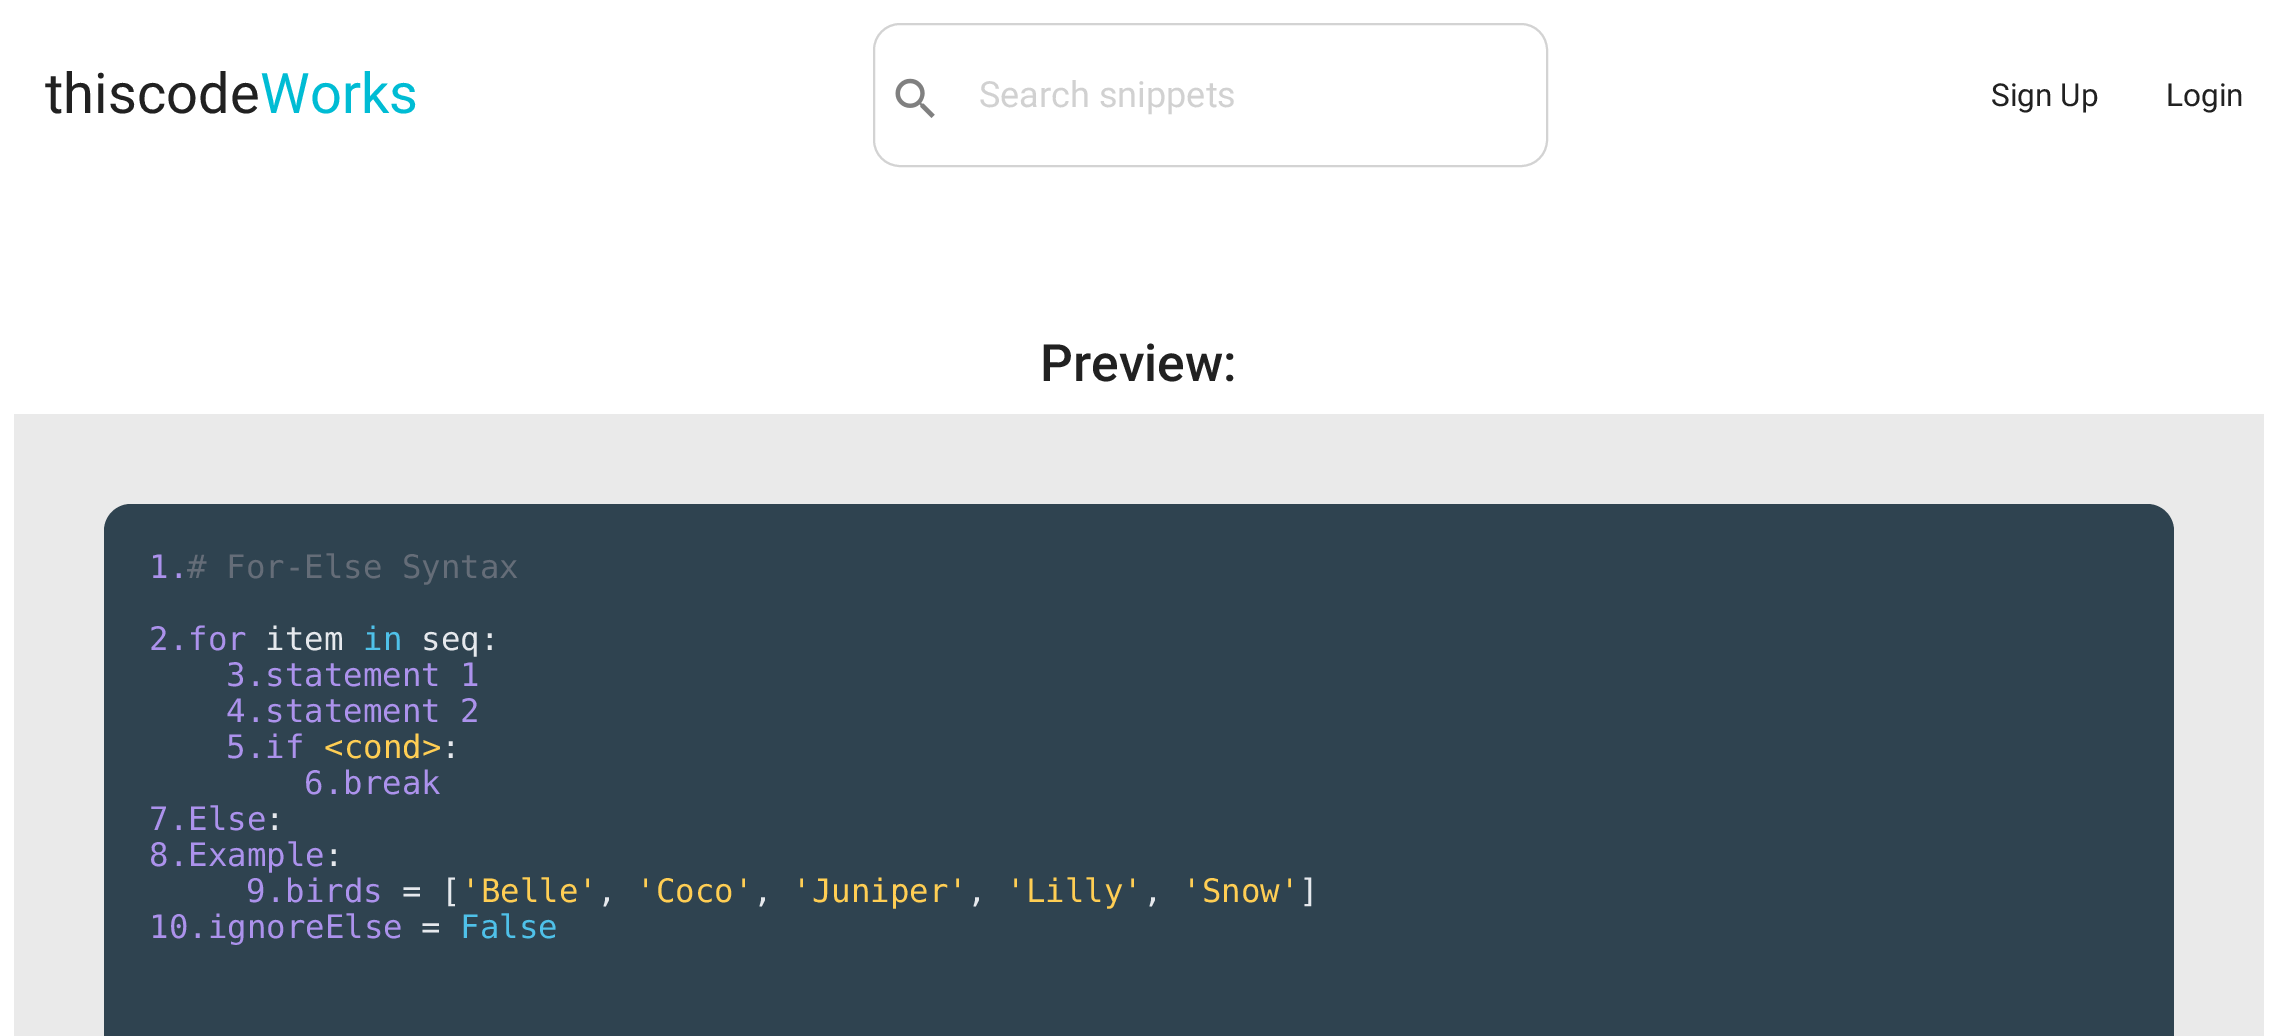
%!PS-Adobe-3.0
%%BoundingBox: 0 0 2277 1036
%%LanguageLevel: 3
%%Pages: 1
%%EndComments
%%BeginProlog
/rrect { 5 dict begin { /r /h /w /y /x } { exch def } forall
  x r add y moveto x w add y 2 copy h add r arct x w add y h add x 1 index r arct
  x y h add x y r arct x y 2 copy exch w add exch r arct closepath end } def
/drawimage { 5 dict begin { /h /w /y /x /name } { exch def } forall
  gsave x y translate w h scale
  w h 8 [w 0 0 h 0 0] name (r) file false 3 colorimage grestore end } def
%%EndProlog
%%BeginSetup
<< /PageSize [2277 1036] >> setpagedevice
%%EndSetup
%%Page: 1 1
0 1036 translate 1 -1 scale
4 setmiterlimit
1 setgray
0 0 2277 1036 rectfill
0.827 setgray
2 setlinewidth
874 24 673 142 26 rrect stroke
(images/1.raw) 895 78 40 40 drawimage
0.918 setgray
14 414 2250 622 rectfill
0.184 0.263 0.314 setrgbcolor
newpath 131 504 moveto 2147 504 lineto 2162 504 2174 516 2174 531 curveto 2174 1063 lineto 104 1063 lineto 104 531 lineto 104 516 116 504 131 504 curveto closepath fill
/Roboto-Regular [56 0 0 -56 0 0] selectfont
0.129 setgray
45 113 moveto (thiscode) show
0 0.737 0.831 setrgbcolor
260 113 moveto (Works) show
/Roboto-Regular [36 0 0 -36 0 0] selectfont
0.82 setgray
979 107 moveto (Search snippets) show
/Roboto-Regular [31.5 0 0 -31.5 0 0] selectfont
0.129 setgray
1991 106 moveto (Sign Up) show
2166 106 moveto (Login) show
/Roboto-Medium [51.5 0 0 -51.5 0 0] selectfont
1040 381 moveto (Preview:) show
/DejaVuSansMono-Regular [32.4 0 0 -32.4 0 0] selectfont
0.675 0.573 0.925 setrgbcolor
149 578 moveto (1.) show
0.396 0.427 0.471 setrgbcolor
187 578 moveto (# For-Else Syntax) show
0.675 0.573 0.925 setrgbcolor
149 650 moveto (2.for) show
0.902 0.914 0.929 setrgbcolor
265 650 moveto (item) show
0.31 0.757 0.914 setrgbcolor
363 650 moveto (in) show
0.902 0.914 0.929 setrgbcolor
421 650 moveto (seq:) show
0.675 0.573 0.925 setrgbcolor
226 686 moveto (3.statement 1) show
226 722 moveto (4.statement 2) show
226 758 moveto (5.if) show
1 0.808 0.329 setrgbcolor
324 758 moveto (<cond>) show
0.902 0.914 0.929 setrgbcolor
441 758 moveto (:) show
0.675 0.573 0.925 setrgbcolor
304 794 moveto (6.break) show
149 830 moveto (7.Else) show
0.902 0.914 0.929 setrgbcolor
265 830 moveto (:) show
0.675 0.573 0.925 setrgbcolor
149 866 moveto (8.Example) show
0.902 0.914 0.929 setrgbcolor
324 866 moveto (:) show
0.675 0.573 0.925 setrgbcolor
246 902 moveto (9.birds) show
0.902 0.914 0.929 setrgbcolor
402 902 moveto (= [) show
1 0.808 0.329 setrgbcolor
461 902 moveto ('Belle') show
0.902 0.914 0.929 setrgbcolor
597 902 moveto (,) show
1 0.808 0.329 setrgbcolor
636 902 moveto ('Coco') show
0.902 0.914 0.929 setrgbcolor
753 902 moveto (,) show
1 0.808 0.329 setrgbcolor
792 902 moveto ('Juniper') show
0.902 0.914 0.929 setrgbcolor
967 902 moveto (,) show
1 0.808 0.329 setrgbcolor
1006 902 moveto ('Lilly') show
0.902 0.914 0.929 setrgbcolor
1143 902 moveto (,) show
1 0.808 0.329 setrgbcolor
1182 902 moveto ('Snow') show
0.902 0.914 0.929 setrgbcolor
1299 902 moveto (]) show
0.675 0.573 0.925 setrgbcolor
149 938 moveto (10.ignoreElse) show
0.902 0.914 0.929 setrgbcolor
421 938 moveto (=) show
0.31 0.757 0.914 setrgbcolor
460 938 moveto (False) show
showpage
%%EOF
